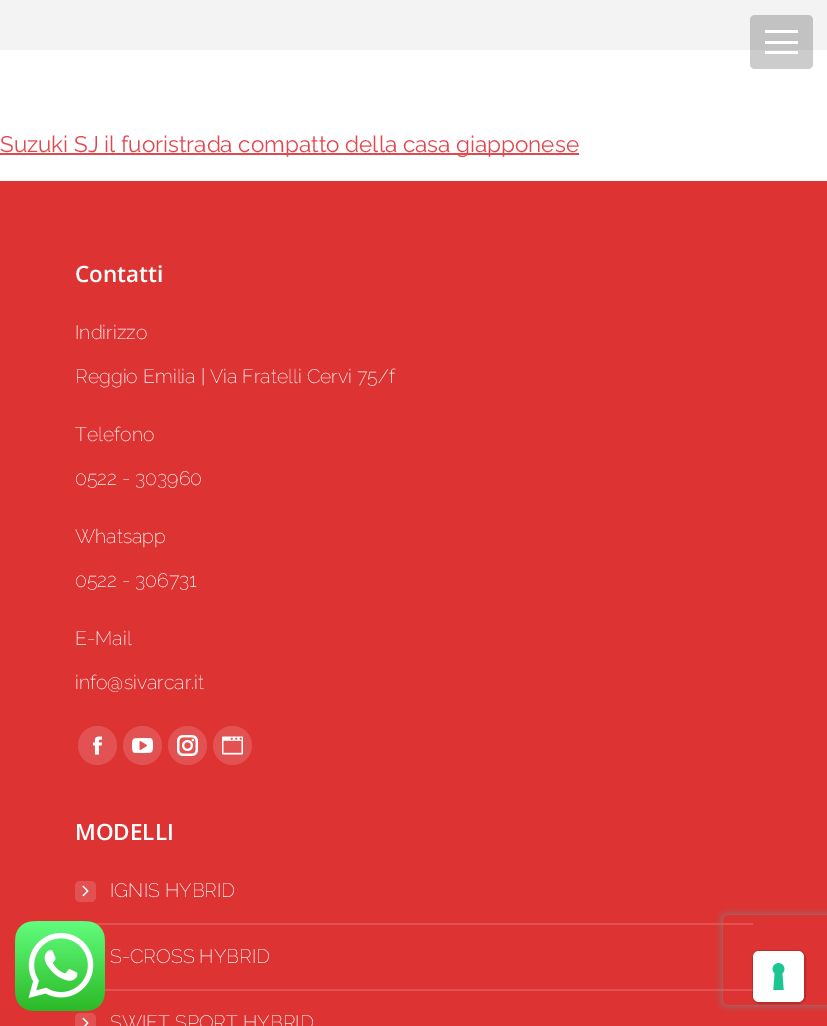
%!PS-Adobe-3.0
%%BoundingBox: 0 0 827 1026
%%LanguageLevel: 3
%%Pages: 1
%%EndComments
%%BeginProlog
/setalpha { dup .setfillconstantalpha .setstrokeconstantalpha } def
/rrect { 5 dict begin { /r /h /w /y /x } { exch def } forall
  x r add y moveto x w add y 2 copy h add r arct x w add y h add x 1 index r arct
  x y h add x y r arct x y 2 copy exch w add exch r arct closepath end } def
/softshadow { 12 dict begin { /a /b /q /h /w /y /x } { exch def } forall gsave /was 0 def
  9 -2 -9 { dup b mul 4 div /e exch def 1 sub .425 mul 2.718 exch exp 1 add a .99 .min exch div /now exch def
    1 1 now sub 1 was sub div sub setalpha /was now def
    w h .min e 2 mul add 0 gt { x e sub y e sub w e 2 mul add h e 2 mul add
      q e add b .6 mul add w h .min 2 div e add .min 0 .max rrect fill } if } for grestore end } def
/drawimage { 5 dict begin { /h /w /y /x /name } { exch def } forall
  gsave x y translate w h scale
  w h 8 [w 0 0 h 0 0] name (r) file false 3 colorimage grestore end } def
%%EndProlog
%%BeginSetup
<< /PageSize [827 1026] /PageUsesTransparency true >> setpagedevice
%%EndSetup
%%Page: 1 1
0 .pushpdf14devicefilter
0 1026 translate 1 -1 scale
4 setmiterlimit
0.867 0.2 0.2 setrgbcolor
0 0 827 1026 rectfill
0.953 setgray
0 0 827 50 rectfill
1 setgray
0 50 827 131 rectfill
0.2 setalpha
0 setgray
750 15 63 54 5 rrect fill
1 setalpha
1 setgray
765 30 33 3 rectfill
765 41 33 3 rectfill
765 51 33 3 rectfill
0.882 0.278 0.302 setrgbcolor
0 153 579 2 rectfill
0.886 0.322 0.322 setrgbcolor
newpath 97.5 745.5 19.5 0 360 arc closepath fill
(images/1.raw) 92 736 11 19 drawimage
newpath 142.5 745.5 19.5 0 360 arc closepath fill
(images/2.raw) 132 738 21 15 drawimage
newpath 187.5 745.5 19.5 0 360 arc closepath fill
(images/3.raw) 177 735 21 21 drawimage
newpath 232.5 745.5 19.5 0 360 arc closepath fill
(images/4.raw) 222 736 21 19 drawimage
75 881 21 21 5 rrect fill
(images/5.raw) 82 885 7 12 drawimage
94 923 659 2 rectfill
104 989 649 2 rectfill
75 1013 21 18 5 rrect fill
(images/6.raw) 82 1017 7 9 drawimage
gsave
newpath 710 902 moveto 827 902 lineto 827 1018 lineto 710 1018 lineto closepath 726 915 moveto 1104 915 lineto 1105.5 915 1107 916.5 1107 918 curveto 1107 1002 lineto 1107 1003.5 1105.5 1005 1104 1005 curveto 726 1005 lineto 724.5 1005 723 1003.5 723 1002 curveto 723 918 lineto 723 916.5 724.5 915 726 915 curveto closepath eoclip newpath
0.502 setgray
723 915 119 90 3 4 1 softshadow
grestore
(images/7.raw) 15 921 90 90 drawimage
0.15 setalpha
0 setgray
2 setlinewidth
753 951 52 52 7 rrect stroke
1 setalpha
1 setgray
753 951 51 51 6 rrect fill
(images/8.raw) 772 963 13 27 drawimage
/Raleway-Regular [22.5 0 0 -22.5 0 0] selectfont
0.882 0.278 0.302 setrgbcolor
0 152 moveto (Suzuki SJ il fuoristrada compatto della casa giapponese) show
/OpenSans-SemiBold [22.5 0 0 -22.5 0 0] selectfont
1 setgray
75 282 moveto (Contatti) show
/Raleway-ExtraLight [19.5 0 0 -19.5 0 0] selectfont
75 339 moveto (Indirizzo) show
75 383 moveto (Reggio Emilia | Via Fratelli Cervi 75/f) show
75 441 moveto (Telefono) show
75 485 moveto (0522 - 303960) show
75 543 moveto (Whatsapp) show
75 587 moveto (0522 - 306731) show
75 645 moveto (E-Mail) show
75 689 moveto (info@sivarcar.it) show
/OpenSans-SemiBold [22.5 0 0 -22.5 0 0] selectfont
75 840 moveto (MODELLI) show
/Raleway-ExtraLight [19.5 0 0 -19.5 0 0] selectfont
110 897 moveto (IGNIS HYBRID) show
110 963 moveto (S-CROSS HYBRID) show
110 1029 moveto (SWIFT SPORT HYBRID) show
.poppdf14devicefilter showpage
%%EOF
